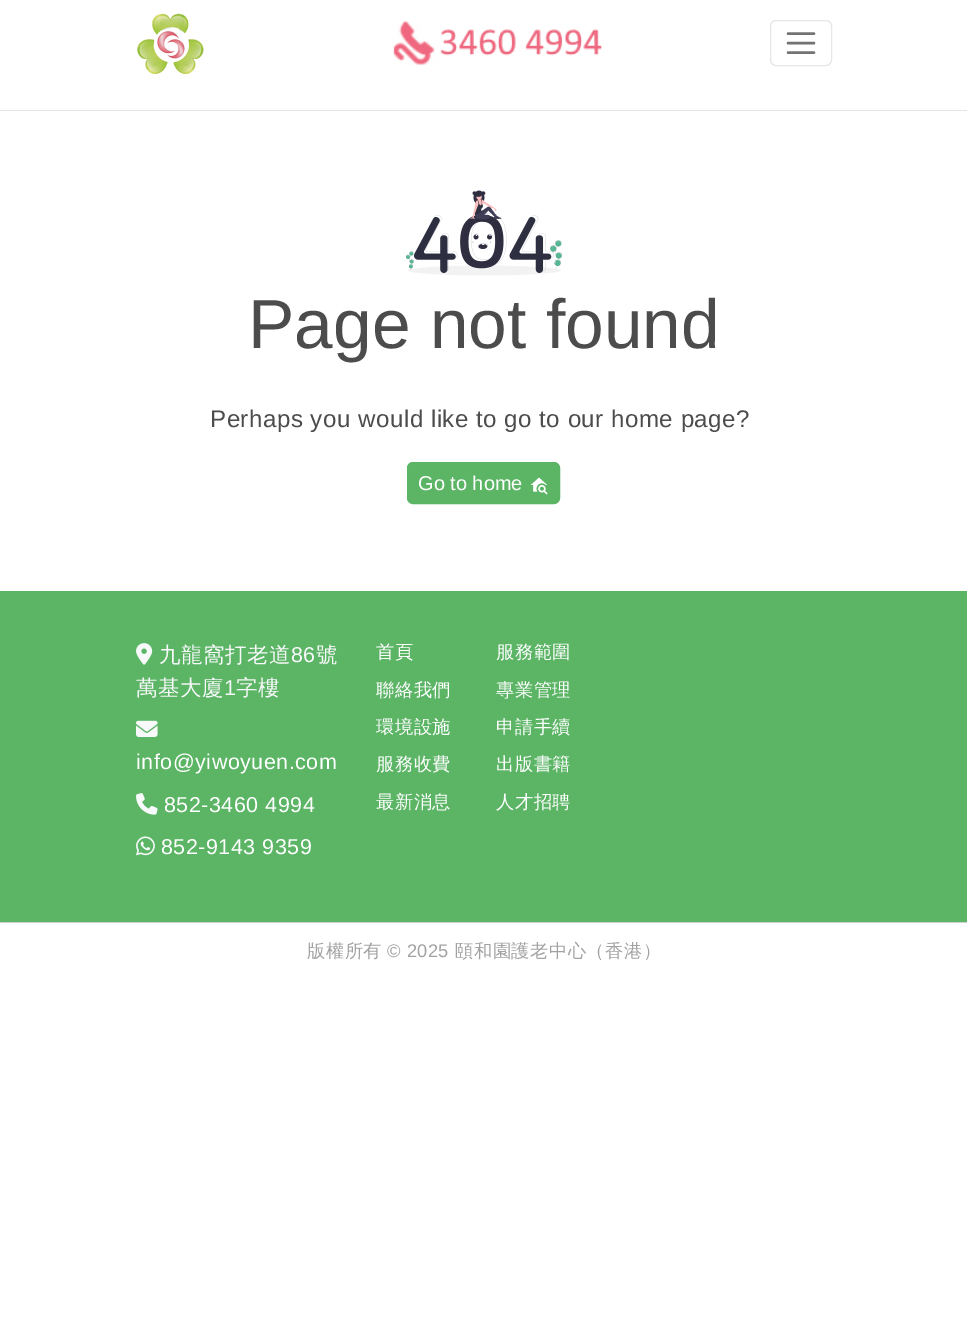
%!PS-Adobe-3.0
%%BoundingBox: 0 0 967 1344
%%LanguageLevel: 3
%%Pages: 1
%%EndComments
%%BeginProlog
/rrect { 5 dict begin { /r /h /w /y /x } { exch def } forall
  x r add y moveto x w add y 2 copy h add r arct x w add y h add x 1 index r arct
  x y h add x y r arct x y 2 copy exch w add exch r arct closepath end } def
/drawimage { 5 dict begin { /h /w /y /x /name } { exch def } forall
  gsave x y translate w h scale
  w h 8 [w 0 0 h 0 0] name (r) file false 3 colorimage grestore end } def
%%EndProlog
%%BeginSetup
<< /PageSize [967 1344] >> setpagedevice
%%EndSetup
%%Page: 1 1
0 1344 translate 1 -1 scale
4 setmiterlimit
1 setgray
0 0 967 1344 rectfill
(images/1.raw) 137 13 67 61 drawimage
(images/2.raw) 393 20 209 45 drawimage
0.902 setgray
770.5 20.5 61 45 5.5 rrect stroke
0.451 setgray
2.4 setlinewidth
1 setlinecap
newpath 788 33.5 moveto 814 33.5 lineto 788 43 moveto 814 43 lineto 788 52.5 moveto 814 52.5 lineto stroke
0.894 setgray
0 110 967 1 rectfill
(images/3.raw) 406 190 156 86 drawimage
0.357 0.71 0.396 setrgbcolor
407.5 462.5 152 41 5.5 rrect gsave fill grestore
1 setlinewidth
0 setlinecap
stroke
(images/4.raw) 530 477 18 18 drawimage
0 591 967 331 rectfill
(images/5.raw) 136 643 17 22 drawimage
(images/6.raw) 136 720 22 17 drawimage
(images/7.raw) 136 793 22 22 drawimage
(images/8.raw) 136 836 19 20 drawimage
0.808 setgray
0 922 967 1 rectfill
/LiberationSans-Regular [69.5 0 0 -69.5 0 0] selectfont
0.298 setgray
248 348 moveto (Page not found) show
/LiberationSans-Regular [24.1 0 0 -24.1 0 0] selectfont
210 427 moveto 0.5 0 (Perhaps you would like to go to our home page?) ashow
/LiberationSans-Regular [20 0 0 -20 0 0] selectfont
1 setgray
418 490 moveto (Go to home) show
/WenQuanYiZenHei-Medium [21.5 0 0 -21.5 0 0] selectfont
0.973 0.976 0.98 setrgbcolor
159 662 moveto 0.5 0 (九龍窩打老道) ashow
/LiberationSans-Regular [21.5 0 0 -21.5 0 0] selectfont
291 662 moveto 0.5 0 (86) ashow
/WenQuanYiZenHei-Medium [21.5 0 0 -21.5 0 0] selectfont
316 662 moveto 0.5 0 (號) ashow
136 695 moveto 0.5 0 (萬基大廈) ashow
/LiberationSans-Regular [21.5 0 0 -21.5 0 0] selectfont
224 695 moveto 0.5 0 (1) ashow
/WenQuanYiZenHei-Medium [21.5 0 0 -21.5 0 0] selectfont
236 695 moveto 0.5 0 (字樓) ashow
/LiberationSans-Regular [21.5 0 0 -21.5 0 0] selectfont
1 setgray
136 769 moveto 0.5 0 (info@yiwoyuen.com) ashow
164 812 moveto 0.5 0 (852-3460 4994) ashow
161 854 moveto 0.5 0 (852-9143 9359) ashow
/WenQuanYiZenHei-Medium [18.25 0 0 -18.25 0 0] selectfont
376 658 moveto 0.5 0 (首頁) ashow
376 696 moveto 0.5 0 (聯絡我們) ashow
376 733 moveto 0.5 0 (環境設施) ashow
376 770 moveto 0.5 0 (服務收費) ashow
376 808 moveto 0.5 0 (最新消息) ashow
496 658 moveto 0.5 0 (服務範圍) ashow
496 696 moveto 0.5 0 (專業管理) ashow
496 733 moveto 0.5 0 (申請手續) ashow
496 770 moveto 0.5 0 (出版書籍) ashow
496 808 moveto 0.5 0 (人才招聘) ashow
0.635 setgray
307 957 moveto 0.5 0 (版權所有) ashow
/LiberationSans-Regular [18.25 0 0 -18.25 0 0] selectfont
387 957 moveto 0.5 0 (© 2025) ashow
/WenQuanYiZenHei-Medium [18.25 0 0 -18.25 0 0] selectfont
455 957 moveto 0.5 0 (頤和園護老中心（香港）) ashow
showpage
%%EOF
